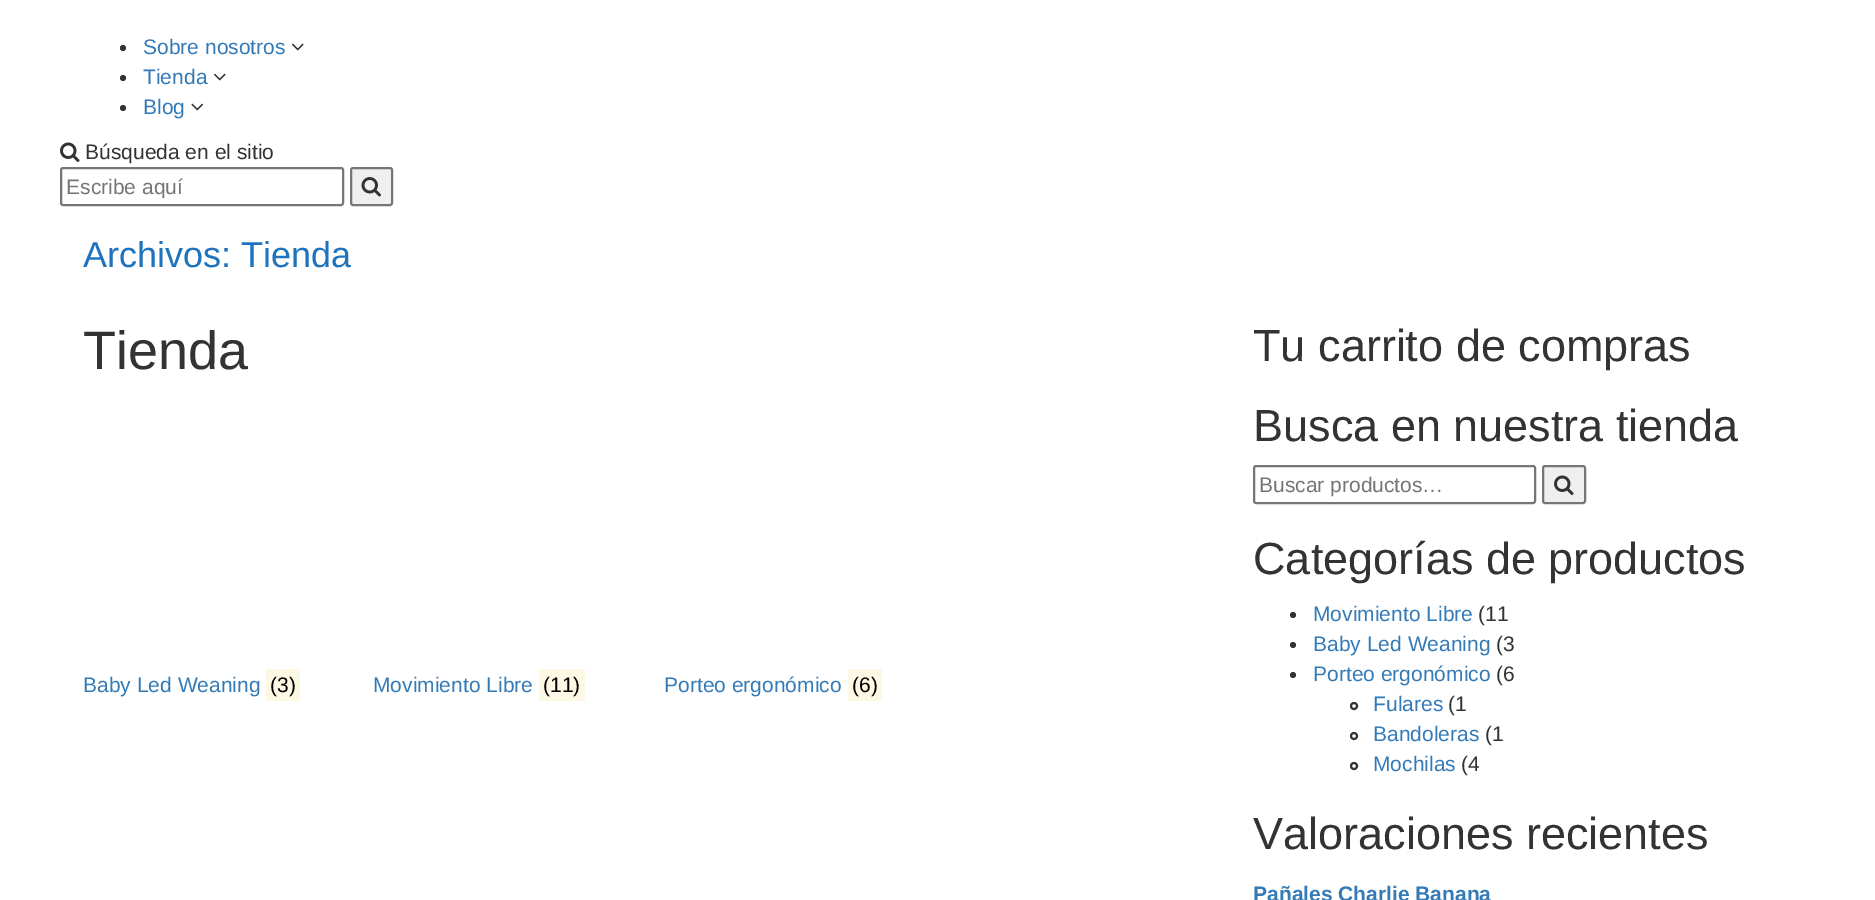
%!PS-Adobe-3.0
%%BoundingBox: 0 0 1875 900
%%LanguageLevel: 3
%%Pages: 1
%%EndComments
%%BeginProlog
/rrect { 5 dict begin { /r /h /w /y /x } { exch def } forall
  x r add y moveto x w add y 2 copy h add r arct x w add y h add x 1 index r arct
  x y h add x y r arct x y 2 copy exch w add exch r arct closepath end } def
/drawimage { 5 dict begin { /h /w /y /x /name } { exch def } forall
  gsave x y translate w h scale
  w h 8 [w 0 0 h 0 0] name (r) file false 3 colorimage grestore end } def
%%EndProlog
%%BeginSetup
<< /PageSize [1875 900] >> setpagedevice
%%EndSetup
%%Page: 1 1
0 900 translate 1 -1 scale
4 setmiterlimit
1 setgray
0 0 1875 900 rectfill
0.2 setgray
newpath 123 48 3 0 360 arc closepath fill
(images/1.raw) 291 43 13 8 drawimage
newpath 123 78 3 0 360 arc closepath fill
(images/1.raw) 213 73 13 8 drawimage
newpath 123 108 3 0 360 arc closepath fill
(images/2.raw) 191 103 13 8 drawimage
(images/3.raw) 60 142 20 20 drawimage
0.463 setgray
2 setlinewidth
61 168 282 37 2 rrect stroke
0.937 setgray
351 168 41 37 2 rrect gsave fill grestore
0.463 setgray
stroke
(images/4.raw) 361 177 20 20 drawimage
0.988 0.973 0.89 setrgbcolor
266 669 34 32 rectfill
539 669 46 32 rectfill
848 669 34 32 rectfill
0.463 setgray
1254 466 281 37 2 rrect stroke
0.937 setgray
1543 466 42 37 2 rrect gsave fill grestore
0.463 setgray
stroke
(images/5.raw) 1554 475 20 20 drawimage
0.2 setgray
newpath 1293 615 3 0 360 arc closepath fill
newpath 1293 645 3 0 360 arc closepath fill
newpath 1293 675 3 0 360 arc closepath fill
newpath 1354 706 3 0 360 arc closepath stroke
newpath 1354 736 3 0 360 arc closepath stroke
newpath 1354 766 3 0 360 arc closepath stroke
/LiberationSans-Regular [21 0 0 -21 0 0] selectfont
0.2 0.478 0.718 setrgbcolor
143 54 moveto (Sobre nosotros) show
143 84 moveto (Tienda) show
143 114 moveto (Blog) show
0.2 setgray
85 159 moveto (Búsqueda en el sitio) show
0.459 setgray
66 194 moveto (Escribe aquí) show
/LiberationSans-Regular [36 0 0 -36 0 0] selectfont
0.118 0.451 0.745 setrgbcolor
83 267 moveto (Archivos: Tienda) show
/LiberationSans-Regular [54 0 0 -54 0 0] selectfont
0.2 setgray
83 369 moveto (Tienda) show
/LiberationSans-Regular [21 0 0 -21 0 0] selectfont
0.2 0.478 0.718 setrgbcolor
83 692 moveto (Baby Led Weaning) show
0 setgray
270 692 moveto (\(3\)) show
0.2 0.478 0.718 setrgbcolor
373 692 moveto (Movimiento Libre) show
0 setgray
543 692 moveto (\(11\)) show
0.2 0.478 0.718 setrgbcolor
664 692 moveto (Porteo ergonómico) show
0 setgray
852 692 moveto (\(6\)) show
/LiberationSans-Regular [45 0 0 -45 0 0] selectfont
0.2 setgray
1253 361 moveto (Tu carrito de compras) show
1253 441 moveto (Busca en nuestra tienda) show
/LiberationSans-Regular [21 0 0 -21 0 0] selectfont
0.459 setgray
1259 492 moveto (Buscar productos…) show
/LiberationSans-Regular [45 0 0 -45 0 0] selectfont
0.2 setgray
1253 574 moveto (Categorías de productos) show
/LiberationSans-Regular [21 0 0 -21 0 0] selectfont
0.2 0.478 0.718 setrgbcolor
1313 621 moveto (Movimiento Libre) show
0.2 setgray
1478 621 moveto (\(11) show
0.2 0.478 0.718 setrgbcolor
1313 651 moveto (Baby Led Weaning) show
0.2 setgray
1496 651 moveto (\(3) show
0.2 0.478 0.718 setrgbcolor
1313 681 moveto (Porteo ergonómico) show
0.2 setgray
1496 681 moveto (\(6) show
0.2 0.478 0.718 setrgbcolor
1373 711 moveto (Fulares) show
0.2 setgray
1448 711 moveto (\(1) show
0.2 0.478 0.718 setrgbcolor
1373 741 moveto (Bandoleras) show
0.2 setgray
1485 741 moveto (\(1) show
0.2 0.478 0.718 setrgbcolor
1373 771 moveto (Mochilas) show
0.2 setgray
1461 771 moveto (\(4) show
/LiberationSans-Regular [45 0 0 -45 0 0] selectfont
1253 849 moveto (Valoraciones recientes) show
/LiberationSans-Bold [21 0 0 -21 0 0] selectfont
0.2 0.478 0.718 setrgbcolor
1253 901 moveto (Pañales Charlie Banana) show
showpage
%%EOF
